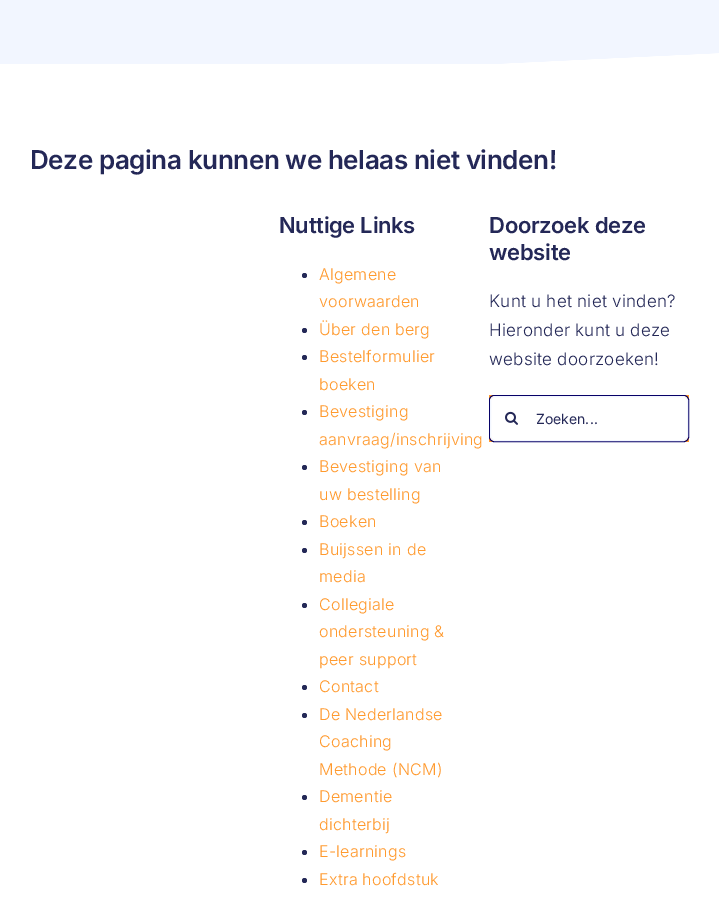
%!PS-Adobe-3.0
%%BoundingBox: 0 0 719 901
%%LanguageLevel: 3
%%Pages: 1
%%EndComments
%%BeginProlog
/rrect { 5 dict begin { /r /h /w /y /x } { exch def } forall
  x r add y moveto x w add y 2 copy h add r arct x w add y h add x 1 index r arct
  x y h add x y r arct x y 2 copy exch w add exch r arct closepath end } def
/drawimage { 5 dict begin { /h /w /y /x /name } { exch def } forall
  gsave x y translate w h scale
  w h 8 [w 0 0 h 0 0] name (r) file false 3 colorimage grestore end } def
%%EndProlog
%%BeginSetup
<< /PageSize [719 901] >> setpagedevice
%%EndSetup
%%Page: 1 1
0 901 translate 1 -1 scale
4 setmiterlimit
1 setgray
0 0 719 901 rectfill
0.949 0.965 1 setrgbcolor
0 0 719 40 rectfill
gsave newpath 0 40 moveto 719 40 lineto 719 64 lineto 0 64 lineto closepath clip newpath
<< /ShadingType 2 /ColorSpace /DeviceRGB /Coords [358 21 361 83] /Extend [true true] /Function << /FunctionType 3 /Domain [0 1] /Functions [<< /FunctionType 2 /Domain [0 1] /C0 [0.949 0.965 1] /C1 [0.949 0.965 1] /N 1 >> << /FunctionType 2 /Domain [0 1] /C0 [1 1 1] /C1 [1 1 1] /N 1 >>] /Bounds [0.8] /Encode [0 1 0 1] >> >> shfill grestore
0.141 0.157 0.341 setrgbcolor
newpath 304.5 275.5 2.5 0 360 arc closepath fill
newpath 304.5 330.5 2.5 0 360 arc closepath fill
newpath 304.5 357.5 2.5 0 360 arc closepath fill
newpath 304.5 412.5 2.5 0 360 arc closepath fill
newpath 304.5 467.5 2.5 0 360 arc closepath fill
newpath 304.5 522.5 2.5 0 360 arc closepath fill
newpath 304.5 550.5 2.5 0 360 arc closepath fill
newpath 304.5 605.5 2.5 0 360 arc closepath fill
newpath 304.5 687.5 2.5 0 360 arc closepath fill
newpath 304.5 715.5 2.5 0 360 arc closepath fill
newpath 304.5 797.5 2.5 0 360 arc closepath fill
newpath 304.5 852.5 2.5 0 360 arc closepath fill
newpath 304.5 880.5 2.5 0 360 arc closepath fill
1 0.604 0.18 setrgbcolor
489 395 200 47 rectfill
0.027 0.004 0.404 setrgbcolor
489.5 395.5 199 46 4.5 rrect stroke
1 setgray
490.5 396.5 197 44 4.5 rrect gsave fill grestore
0.949 0.965 1 setrgbcolor
stroke
(images/1.raw) 505 411 13 14 drawimage
/Inter-SemiBold [26 0 0 -26 0 0] selectfont
0.141 0.157 0.341 setrgbcolor
30 169 moveto -0.4 0 (Deze pagina kunnen we helaas niet vinden!) ashow
/Inter-SemiBold [22 0 0 -22 0 0] selectfont
279 233 moveto -0.3 0 (Nuttige Links) ashow
/Inter-Light [16 0 0 -16 0 0] selectfont
1 0.604 0.18 setrgbcolor
319 280 moveto 0.25 0 (Algemene) ashow
319 307 moveto 0.25 0 (voorwaarden) ashow
319 335 moveto 0.25 0 (Über den berg) ashow
319 362 moveto 0.25 0 (Bestelformulier) ashow
319 390 moveto 0.25 0 (boeken) ashow
319 417 moveto 0.25 0 (Bevestiging) ashow
319 445 moveto 0.25 0 (aanvraag/inschrijving) ashow
319 472 moveto 0.25 0 (Bevestiging van) ashow
319 500 moveto 0.25 0 (uw bestelling) ashow
319 527 moveto 0.25 0 (Boeken) ashow
319 555 moveto 0.25 0 (Buijssen in de) ashow
319 582 moveto 0.25 0 (media) ashow
319 610 moveto 0.25 0 (Collegiale) ashow
319 637 moveto 0.25 0 (ondersteuning &) ashow
319 665 moveto 0.25 0 (peer support) ashow
319 692 moveto 0.25 0 (Contact) ashow
319 720 moveto 0.25 0 (De Nederlandse) ashow
319 747 moveto 0.25 0 (Coaching) ashow
319 775 moveto 0.25 0 (Methode \(NCM\)) ashow
319 802 moveto 0.25 0 (Dementie) ashow
319 830 moveto 0.25 0 (dichterbij) ashow
319 857 moveto 0.25 0 (E-learnings) ashow
319 885 moveto 0.25 0 (Extra hoofdstuk) ashow
/Inter-SemiBold [22 0 0 -22 0 0] selectfont
0.141 0.157 0.341 setrgbcolor
489 233 moveto -0.3 0 (Doorzoek deze) ashow
489 260 moveto -0.3 0 (website) ashow
/Inter-Light [17 0 0 -17 0 0] selectfont
489 307 moveto 0.25 0 (Kunt u het niet vinden?) ashow
489 336 moveto 0.25 0 (Hieronder kunt u deze) ashow
489 365 moveto 0.25 0 (website doorzoeken!) ashow
/Inter-Regular [14 0 0 -14 0 0] selectfont
536 424 moveto (Zoeken...) show
showpage
%%EOF
